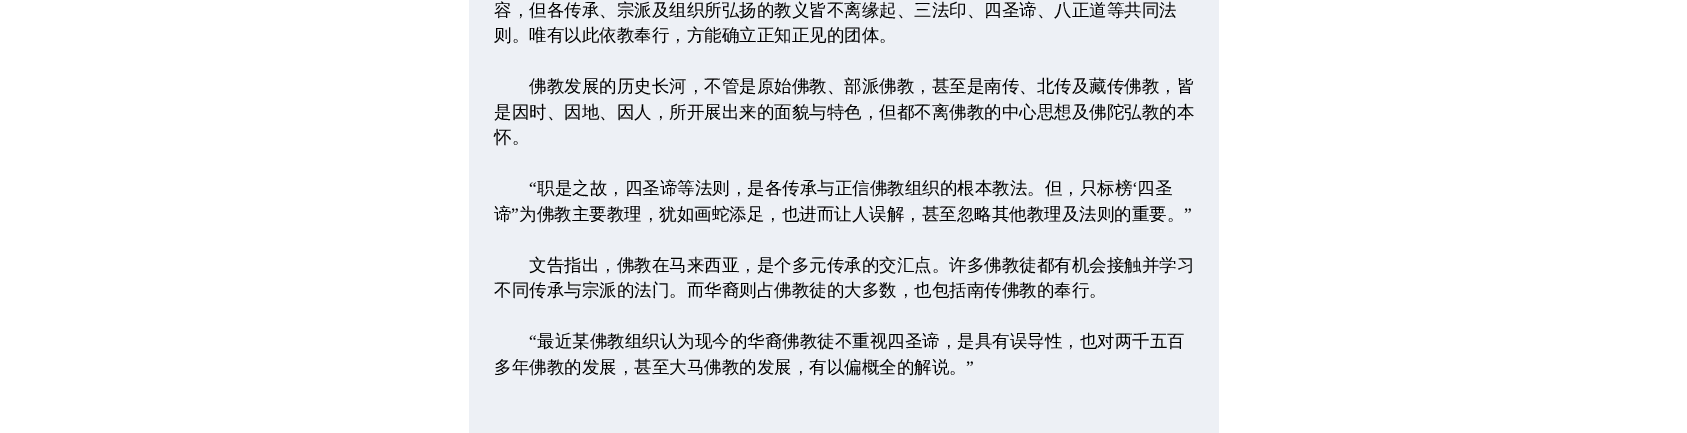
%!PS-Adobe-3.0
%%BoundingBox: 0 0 1687 433
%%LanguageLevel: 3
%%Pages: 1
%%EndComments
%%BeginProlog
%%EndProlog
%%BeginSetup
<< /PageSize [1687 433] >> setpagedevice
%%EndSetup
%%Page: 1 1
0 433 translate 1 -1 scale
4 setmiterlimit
1 setgray
0 0 1687 433 rectfill
0.929 0.941 0.961 setrgbcolor
469 0 750 433 rectfill
/WenQuanYiZenHei-Medium [17.5 0 0 -17.5 0 0] selectfont
0 setgray
494 16 moveto (容，但各传承、宗派及组织所弘扬的教义皆不离缘起、三法印、四圣谛、八正道等共同法) show
494 41 moveto (则。唯有以此依教奉行，方能确立正知正见的团体。) show
529 92 moveto (佛教发展的历史长河，不管是原始佛教、部派佛教，甚至是南传、北传及藏传佛教，皆) show
494 118 moveto (是因时、因地、因人，所开展出来的面貌与特色，但都不离佛教的中心思想及佛陀弘教的本) show
494 143 moveto (怀。) show
/LiberationSerif-Regular [17.5 0 0 -17.5 0 0] selectfont
529 194 moveto (“) show
/WenQuanYiZenHei-Medium [17.5 0 0 -17.5 0 0] selectfont
537 194 moveto (职是之故，四圣谛等法则，是各传承与正信佛教组织的根本教法。但，只标榜) show
/LiberationSerif-Regular [17.5 0 0 -17.5 0 0] selectfont
1132 194 moveto (‘) show
/WenQuanYiZenHei-Medium [17.5 0 0 -17.5 0 0] selectfont
1137 194 moveto (四圣) show
494 220 moveto (谛) show
/LiberationSerif-Regular [17.5 0 0 -17.5 0 0] selectfont
511 220 moveto (”) show
/WenQuanYiZenHei-Medium [17.5 0 0 -17.5 0 0] selectfont
519 220 moveto (为佛教主要教理，犹如画蛇添足，也进而让人误解，甚至忽略其他教理及法则的重要。) show
/LiberationSerif-Regular [17.5 0 0 -17.5 0 0] selectfont
1184 220 moveto (”) show
/WenQuanYiZenHei-Medium [17.5 0 0 -17.5 0 0] selectfont
529 271 moveto (文告指出，佛教在马来西亚，是个多元传承的交汇点。许多佛教徒都有机会接触并学习) show
494 296 moveto (不同传承与宗派的法门。而华裔则占佛教徒的大多数，也包括南传佛教的奉行。) show
/LiberationSerif-Regular [17.5 0 0 -17.5 0 0] selectfont
529 347 moveto (“) show
/WenQuanYiZenHei-Medium [17.5 0 0 -17.5 0 0] selectfont
537 347 moveto (最近某佛教组织认为现今的华裔佛教徒不重视四圣谛，是具有误导性，也对两千五百) show
494 373 moveto (多年佛教的发展，甚至大马佛教的发展，有以偏概全的解说。) show
/LiberationSerif-Regular [17.5 0 0 -17.5 0 0] selectfont
966 373 moveto (”) show
showpage
%%EOF
